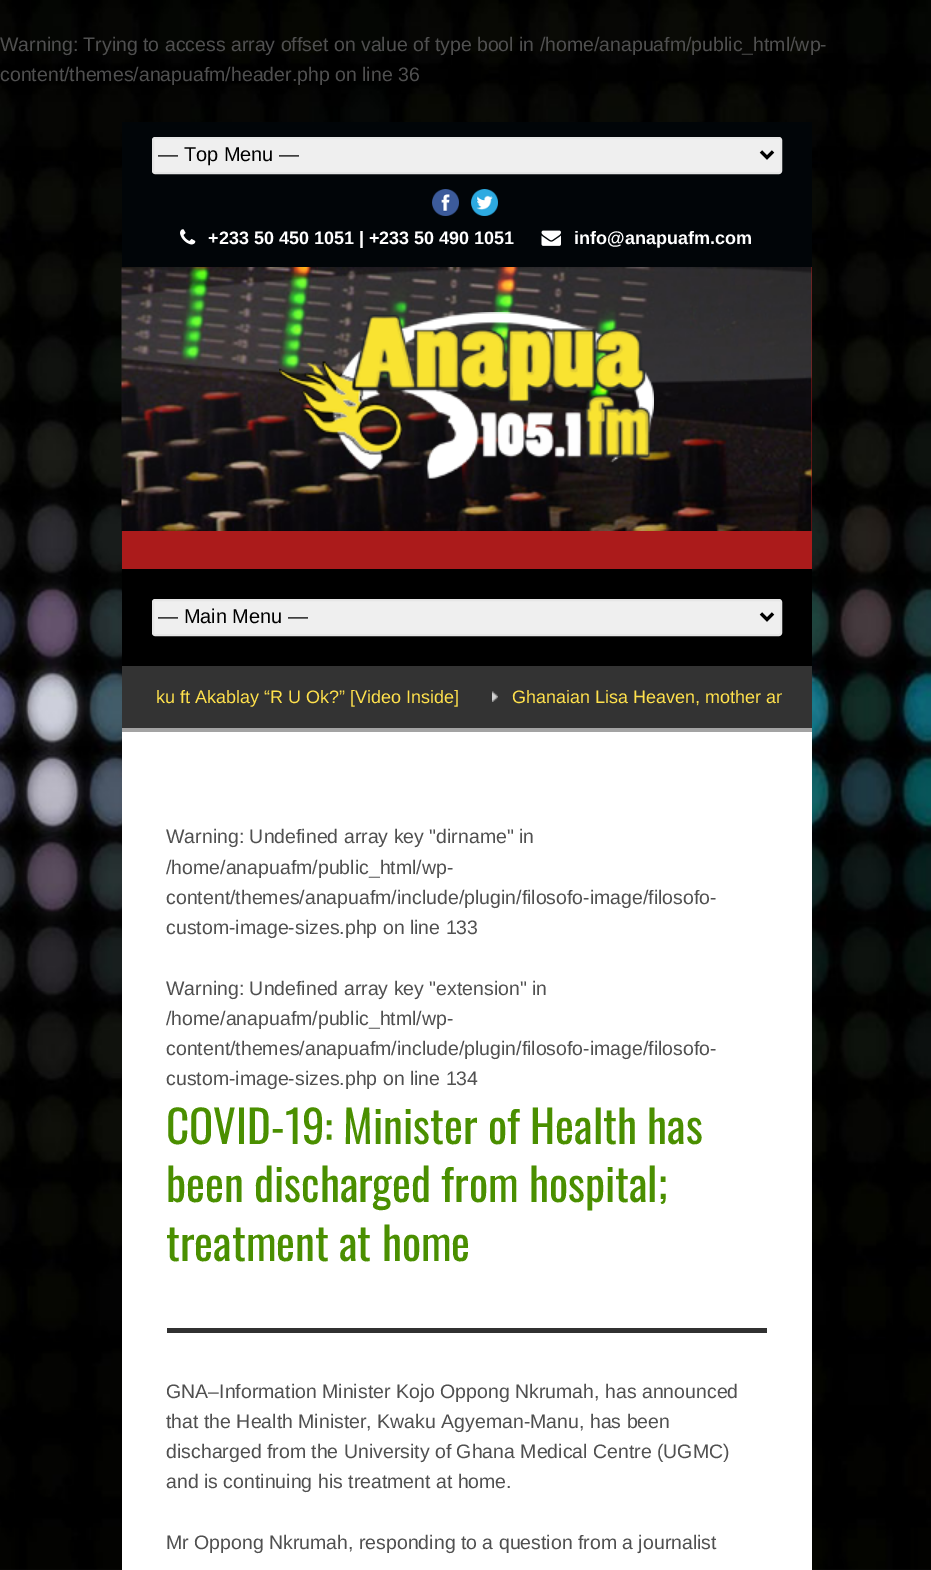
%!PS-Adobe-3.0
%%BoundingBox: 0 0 931 1570
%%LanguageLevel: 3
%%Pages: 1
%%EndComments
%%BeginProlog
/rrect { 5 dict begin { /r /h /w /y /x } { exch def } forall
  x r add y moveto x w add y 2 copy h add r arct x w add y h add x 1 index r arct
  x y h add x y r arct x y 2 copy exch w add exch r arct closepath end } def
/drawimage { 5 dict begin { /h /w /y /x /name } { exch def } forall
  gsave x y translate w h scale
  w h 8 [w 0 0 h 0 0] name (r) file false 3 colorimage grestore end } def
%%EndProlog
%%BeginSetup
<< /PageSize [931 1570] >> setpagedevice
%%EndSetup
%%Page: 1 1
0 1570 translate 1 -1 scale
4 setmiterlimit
1 setgray
0 0 931 1570 rectfill
(images/1.raw) 0 0 931 1570 drawimage
0.004 0.02 0.031 setrgbcolor
122 122 690 145 rectfill
0.937 setgray
153 138 628 35 2 rrect gsave fill grestore
0.902 setgray
2 setlinewidth
stroke
0 setgray
3 setlinewidth
newpath 761 151.5 moveto 767 157.5 lineto 773 151.5 lineto stroke
(images/2.raw) 432 189 27 27 drawimage
(images/3.raw) 471 189 27 27 drawimage
(images/4.raw) 180 229 16 16 drawimage
(images/5.raw) 541 230 20 16 drawimage
0.671 0.106 0.106 setrgbcolor
122 267 690 302 rectfill
(images/6.raw) 121 267 691 264 drawimage
(images/7.raw) 279 312 375 167 drawimage
0 setgray
122 569 690 97 rectfill
0.937 setgray
153 600 628 35 2 rrect gsave fill grestore
0.902 setgray
2 setlinewidth
stroke
0 setgray
3 setlinewidth
newpath 761 613.5 moveto 767 619.5 lineto 773 613.5 lineto stroke
0.2 setgray
122 666 690 62 rectfill
0.639 setgray
122 728 690 4 rectfill
(images/8.raw) 492 691 6 11 drawimage
1 setgray
122 732 690 838 rectfill
0.192 setgray
167 1328 600 5 rectfill
/LiberationSans-Regular [19.5 0 0 -19.5 0 0] selectfont
0.314 setgray
0 51 moveto (Warning: Trying to access array offset on value of type bool in /home/anapuafm/public_html/wp-) show
0 81 moveto (content/themes/anapuafm/header.php on line 36) show
/LiberationSans-Regular [20 0 0 -20 0 0] selectfont
0 setgray
158 161 moveto (— Top Menu —) show
/LiberationSans-Bold [18 0 0 -18 0 0] selectfont
1 setgray
208 244 moveto (+233 50 450 1051 | +233 50 490 1051) show
574 244 moveto (info@anapuafm.com) show
/LiberationSans-Regular [20 0 0 -20 0 0] selectfont
0 setgray
158 623 moveto (— Main Menu —) show
/LiberationSans-Regular [18 0 0 -18 0 0] selectfont
1 0.882 0.298 setrgbcolor
156 703 moveto (ku ft Akablay “R U Ok?” [Video Inside]) show
gsave
152 666 630 62 rectclip
512 703 moveto (Ghanaian Lisa Heaven, mother an) show
grestore
/LiberationSans-Regular [19.5 0 0 -19.5 0 0] selectfont
0.314 setgray
166 843 moveto (Warning: Undefined array key "dirname" in) show
166 874 moveto (/home/anapuafm/public_html/wp-) show
166 904 moveto (content/themes/anapuafm/include/plugin/filosofo-image/filosofo-) show
166 934 moveto (custom-image-sizes.php on line 133) show
166 995 moveto (Warning: Undefined array key "extension" in) show
166 1025 moveto (/home/anapuafm/public_html/wp-) show
166 1055 moveto (content/themes/anapuafm/include/plugin/filosofo-image/filosofo-) show
166 1085 moveto (custom-image-sizes.php on line 134) show
/Oswald-Regular [45 0 0 -45 0 0] selectfont
0.29 0.561 0 setrgbcolor
166 1144 moveto (COVID-19: Minister of Health has) show
166 1202 moveto (been discharged from hospital;) show
166 1261 moveto (treatment at home) show
/LiberationSans-Regular [19.5 0 0 -19.5 0 0] selectfont
0.314 setgray
166 1398 moveto (GNA–Information Minister Kojo Oppong Nkrumah, has announced) show
166 1428 moveto (that the Health Minister, Kwaku Agyeman-Manu, has been) show
166 1458 moveto (discharged from the University of Ghana Medical Centre \(UGMC\)) show
166 1488 moveto (and is continuing his treatment at home.) show
166 1549 moveto (Mr Oppong Nkrumah, responding to a question from a journalist) show
showpage
%%EOF
